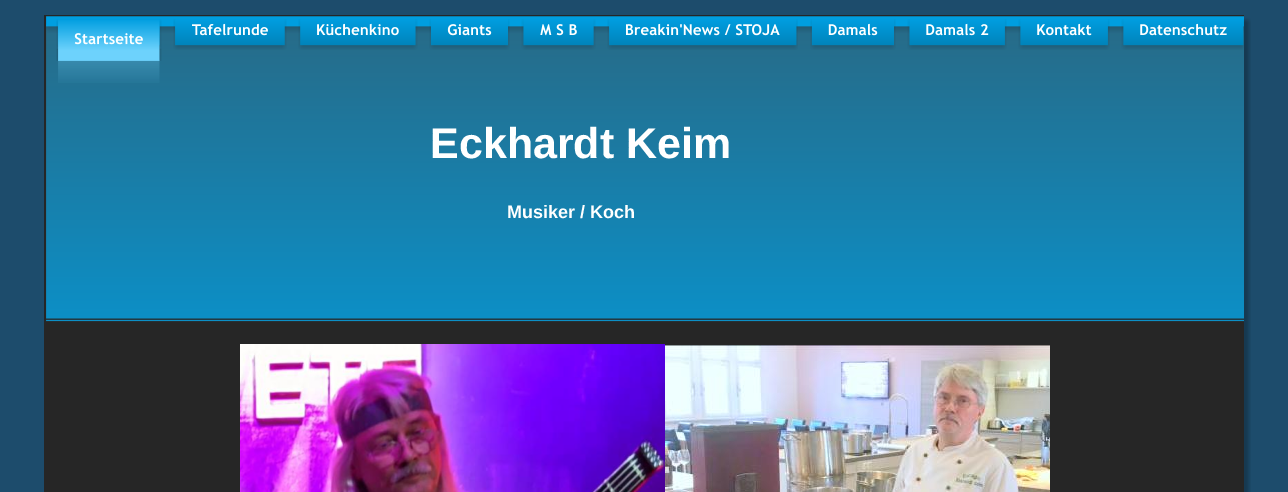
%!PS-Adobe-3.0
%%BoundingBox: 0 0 1288 492
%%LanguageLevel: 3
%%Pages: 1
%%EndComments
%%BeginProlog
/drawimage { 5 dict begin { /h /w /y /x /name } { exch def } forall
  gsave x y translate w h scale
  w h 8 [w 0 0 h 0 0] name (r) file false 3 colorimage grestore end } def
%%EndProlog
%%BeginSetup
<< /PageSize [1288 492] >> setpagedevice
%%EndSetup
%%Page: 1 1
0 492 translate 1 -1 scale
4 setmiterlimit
0.114 0.298 0.424 setrgbcolor
0 0 1288 492 rectfill
(images/1.raw) 44 15 1207 477 drawimage
(images/2.raw) 46 16 1198 306 drawimage
(images/3.raw) 56 19 106 31 drawimage
(images/4.raw) 173 19 114 31 drawimage
(images/5.raw) 298 19 120 31 drawimage
(images/6.raw) 429 19 81 31 drawimage
(images/7.raw) 521 19 75 31 drawimage
(images/8.raw) 607 19 191 31 drawimage
(images/9.raw) 810 19 86 31 drawimage
(images/10.raw) 907 19 100 31 drawimage
(images/11.raw) 1018 19 92 31 drawimage
(images/12.raw) 1121 19 123 31 drawimage
(images/13.raw) 56 20 106 63 drawimage
(images/14.raw) 240 344 425 148 drawimage
(images/15.raw) 665 345 385 147 drawimage
/LiberationSans-Bold [43 0 0 -43 0 0] selectfont
1 setgray
430 158 moveto (Eckhardt Keim) show
/LiberationSans-Bold [18 0 0 -18 0 0] selectfont
507 218 moveto (Musiker / Koch) show
showpage
%%EOF
